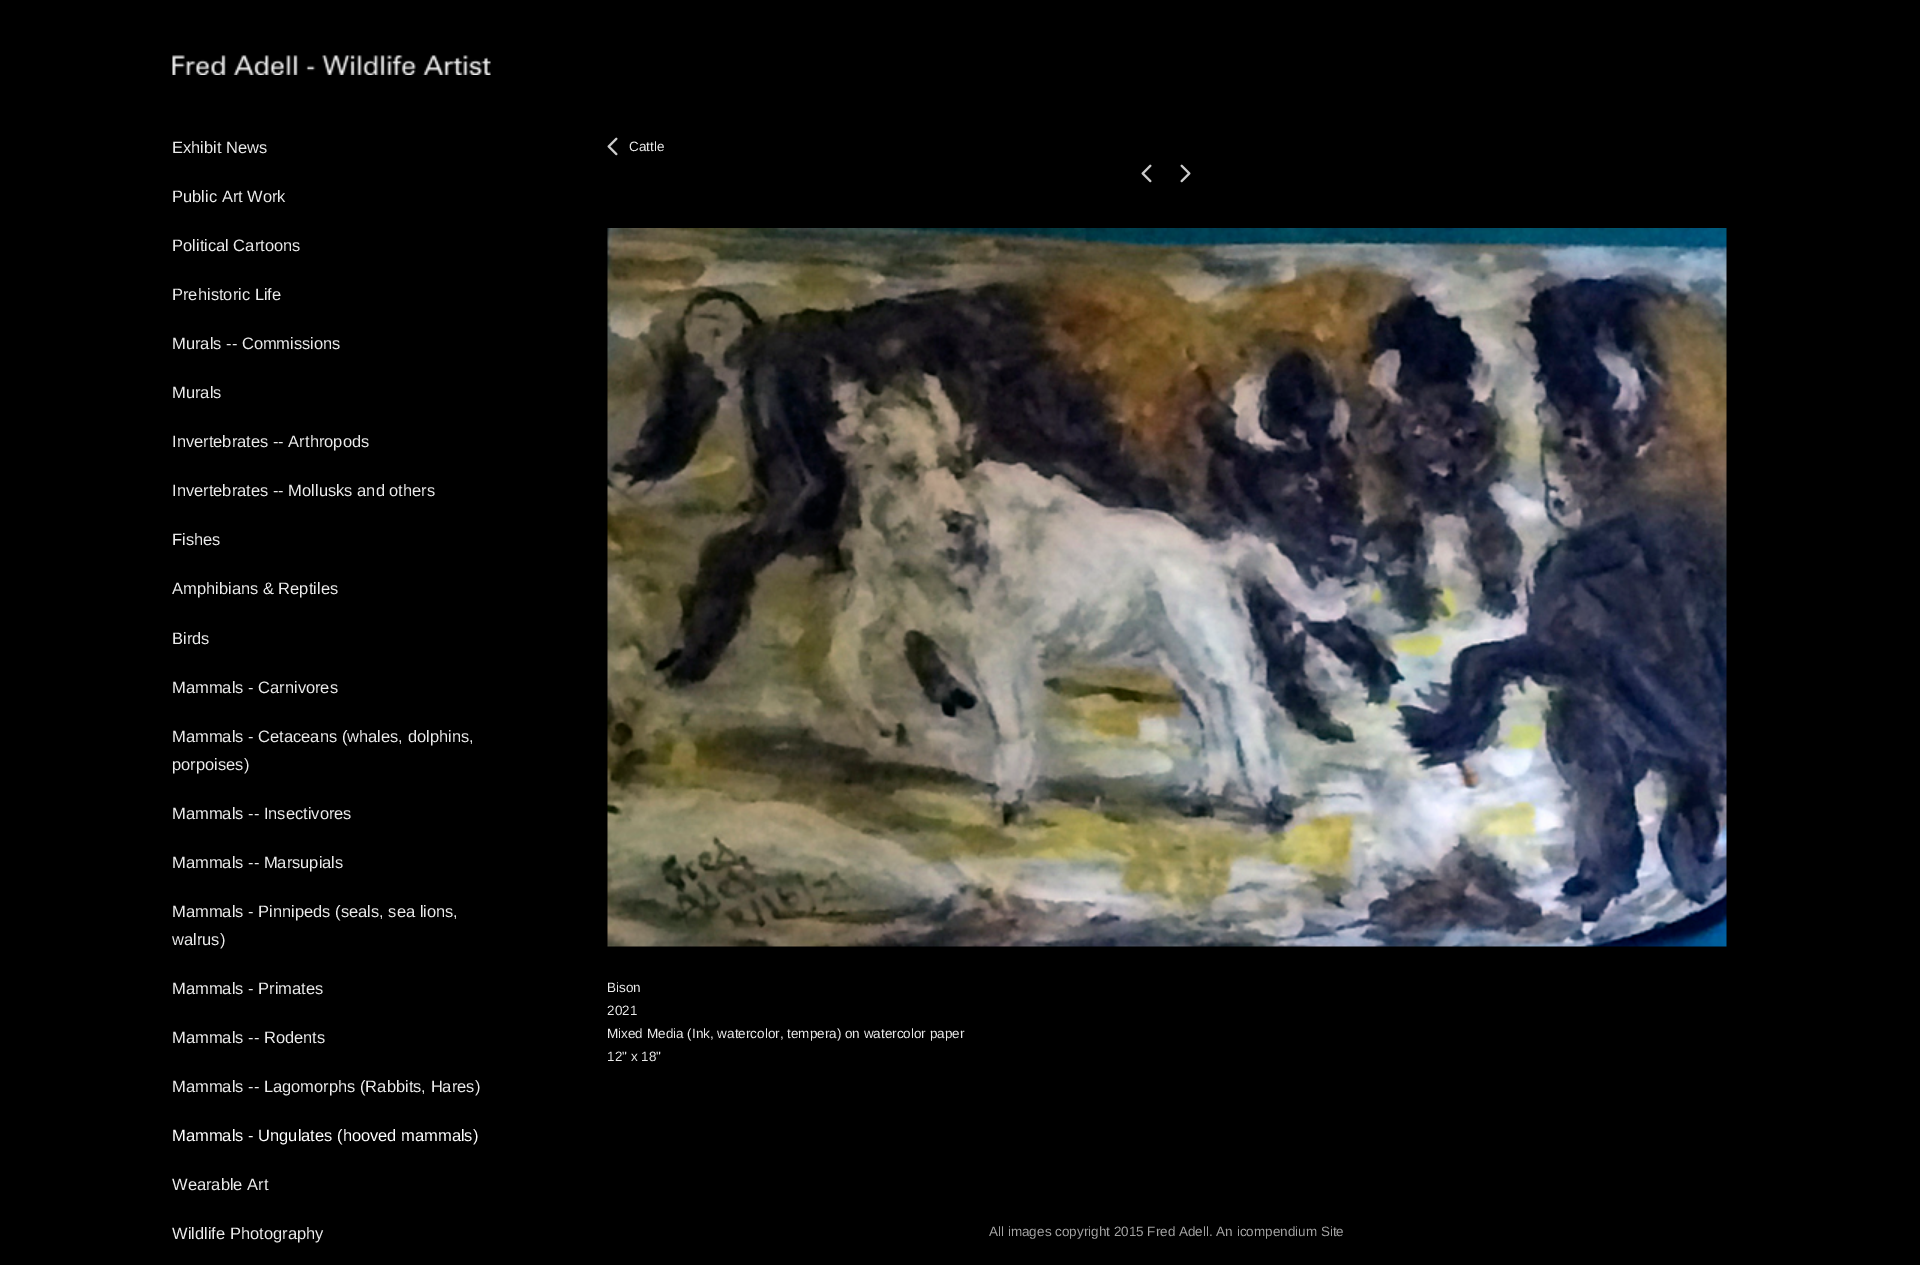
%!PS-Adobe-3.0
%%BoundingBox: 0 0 1920 1265
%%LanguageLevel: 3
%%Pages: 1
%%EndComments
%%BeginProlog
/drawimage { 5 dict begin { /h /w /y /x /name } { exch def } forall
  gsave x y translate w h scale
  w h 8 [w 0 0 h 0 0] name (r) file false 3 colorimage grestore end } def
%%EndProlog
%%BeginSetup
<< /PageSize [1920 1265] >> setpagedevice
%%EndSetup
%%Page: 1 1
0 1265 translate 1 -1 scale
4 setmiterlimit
0 setgray
0 0 1920 1265 rectfill
(images/1.raw) 172 55 319 20 drawimage
(images/2.raw) 607 137 11 19 drawimage
(images/2.raw) 1141 164 11 19 drawimage
(images/3.raw) 1180 164 11 19 drawimage
(images/4.raw) 607 228 1120 719 drawimage
/LiberationSans-Regular [16.5 0 0 -16.5 0 0] selectfont
0.922 setgray
172 153 moveto (Exhibit News) show
172 202 moveto (Public Art Work) show
172 251 moveto (Political Cartoons) show
172 300 moveto (Prehistoric Life) show
172 349 moveto (Murals -- Commissions) show
172 398 moveto (Murals) show
172 447 moveto (Invertebrates -- Arthropods) show
172 496 moveto (Invertebrates -- Mollusks and others) show
172 545 moveto (Fishes) show
172 594 moveto (Amphibians & Reptiles) show
172 644 moveto (Birds) show
172 693 moveto (Mammals - Carnivores) show
172 742 moveto (Mammals - Cetaceans \(whales, dolphins,) show
172 770 moveto (porpoises\)) show
172 819 moveto (Mammals -- Insectivores) show
172 868 moveto (Mammals -- Marsupials) show
172 917 moveto (Mammals - Pinnipeds \(seals, sea lions,) show
172 945 moveto (walrus\)) show
172 994 moveto (Mammals - Primates) show
172 1043 moveto (Mammals -- Rodents) show
172 1092 moveto (Mammals -- Lagomorphs \(Rabbits, Hares\)) show
1 setgray
172 1141 moveto (Mammals - Ungulates \(hooved mammals\)) show
0.922 setgray
172 1190 moveto (Wearable Art) show
172 1239 moveto (Wildlife Photography) show
/LiberationSans-Regular [13.5 0 0 -13.5 0 0] selectfont
629 151 moveto (Cattle) show
607 992 moveto (Bison) show
607 1015 moveto (2021) show
607 1038 moveto (Mixed Media \(Ink, watercolor, tempera\) on watercolor paper) show
607 1061 moveto (12" x 18") show
0.643 setgray
989 1236 moveto (All images copyright 2015 Fred Adell. An icompendium Site) show
showpage
%%EOF
